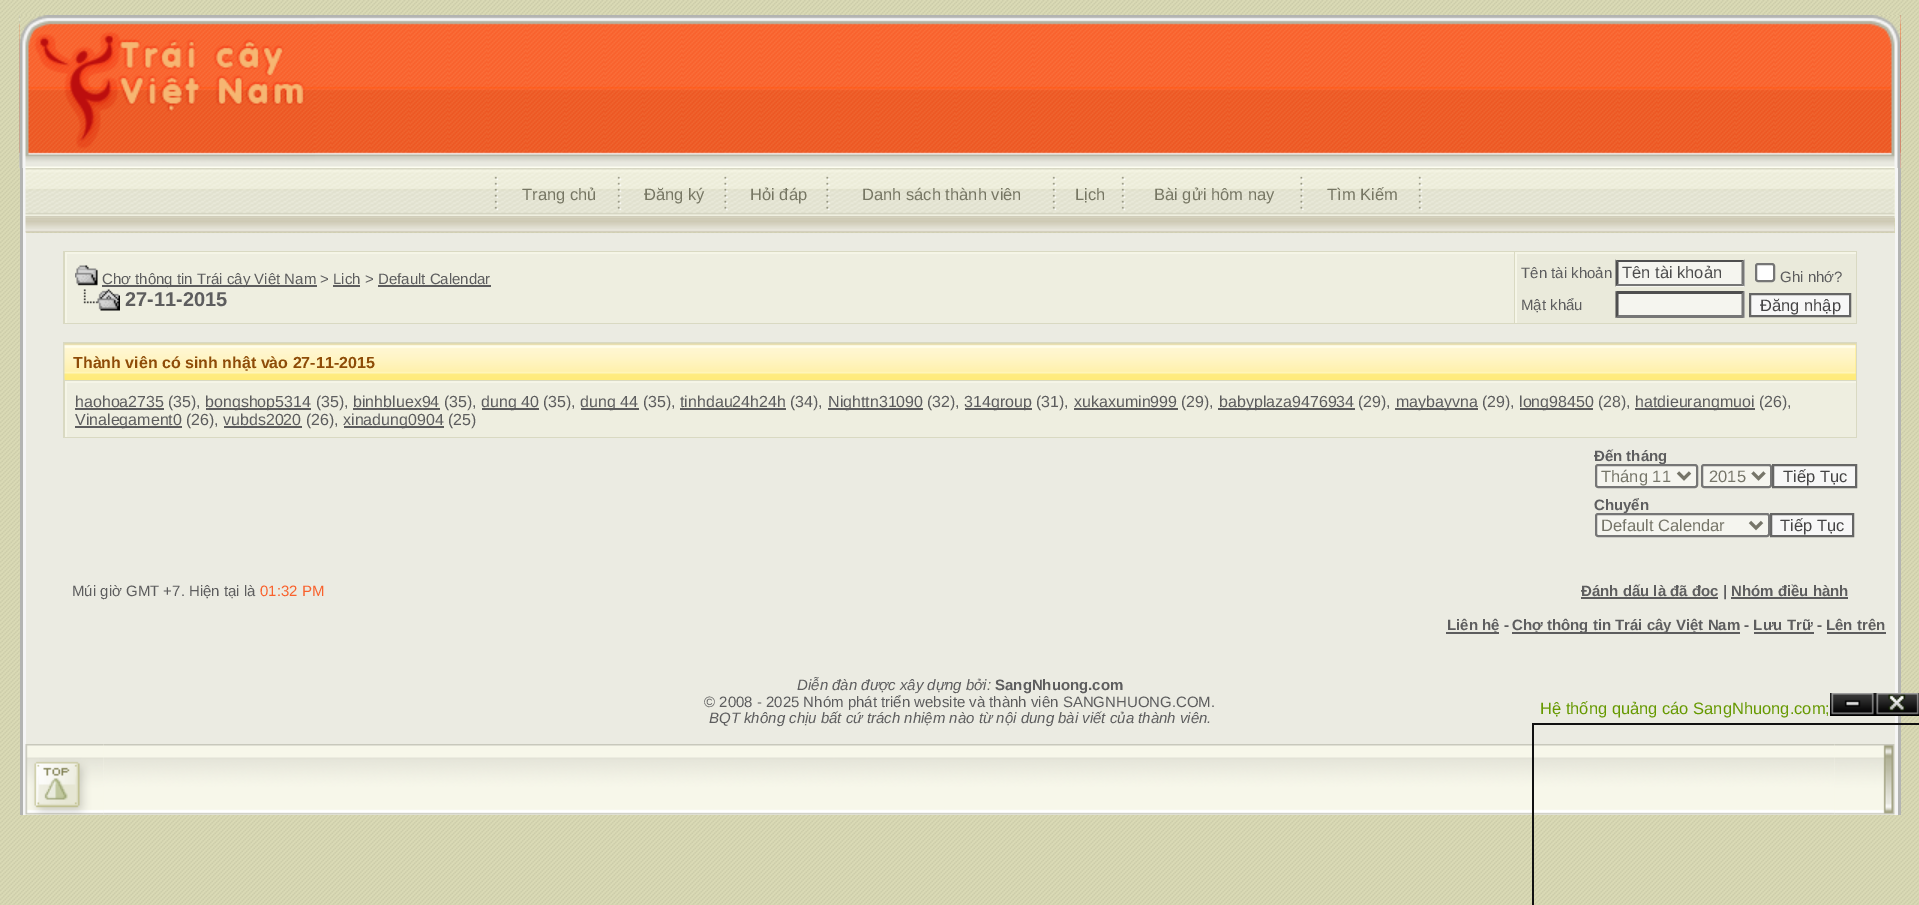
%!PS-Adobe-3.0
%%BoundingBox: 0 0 1919 905
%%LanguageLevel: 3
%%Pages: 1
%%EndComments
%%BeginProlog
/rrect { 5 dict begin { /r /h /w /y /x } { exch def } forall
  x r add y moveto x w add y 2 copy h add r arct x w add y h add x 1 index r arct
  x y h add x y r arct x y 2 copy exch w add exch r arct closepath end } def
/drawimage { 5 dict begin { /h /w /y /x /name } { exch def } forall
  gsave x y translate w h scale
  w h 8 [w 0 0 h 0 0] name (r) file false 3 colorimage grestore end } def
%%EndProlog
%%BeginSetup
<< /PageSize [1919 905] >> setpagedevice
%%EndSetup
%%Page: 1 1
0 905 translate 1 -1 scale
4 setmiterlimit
1 setgray
0 0 1919 905 rectfill
(images/1.raw) 0 0 1919 905 drawimage
(images/2.raw) 19 15 1882 153 drawimage
(images/3.raw) 19 15 296 153 drawimage
(images/4.raw) 1849 15 52 153 drawimage
0.702 0.706 0.698 setrgbcolor
1898 168 3 647 rectfill
20 168 3 647 rectfill
0.961 setgray
1895 168 3 647 rectfill
23 168 3 647 rectfill
0.945 0.945 0.875 setrgbcolor
26 168 1869 50 rectfill
(images/5.raw) 25 168 1870 50 drawimage
(images/6.raw) 494 176 5 35 drawimage
(images/7.raw) 617 176 5 35 drawimage
(images/8.raw) 724 176 4 35 drawimage
(images/9.raw) 826 176 4 35 drawimage
(images/10.raw) 1052 176 5 35 drawimage
(images/11.raw) 1121 176 5 35 drawimage
(images/12.raw) 1300 176 4 35 drawimage
(images/13.raw) 1418 176 5 35 drawimage
(images/14.raw) 25 217 1870 16 drawimage
0.922 0.922 0.886 setrgbcolor
26 233 1869 511 rectfill
0.851 0.851 0.761 setrgbcolor
63 251 1794 73 rectfill
0.933 0.933 0.878 setrgbcolor
67 254 1447 69 rectfill
0.961 0.961 0.906 setrgbcolor
65 252 1449 2 rectfill
65 252 2 71 rectfill
(images/15.raw) 75 265 23 21 drawimage
0.365 0.365 0.369 setrgbcolor
102 285 215 2 rectfill
333 285 27 2 rectfill
378 285 113 2 rectfill
(images/16.raw) 83 289 37 22 drawimage
0.918 0.918 0.859 setrgbcolor
1517 254 339 69 rectfill
0.961 0.961 0.906 setrgbcolor
1515 252 341 2 rectfill
1515 252 2 71 rectfill
0.961 0.961 0.937 setrgbcolor
1616 260 129 27 rectfill
0.31 setgray
newpath 1616 260 moveto 1744 260 lineto 1742 262 lineto 1618 262 lineto closepath fill
0.463 setgray
newpath 1744.5 259.5 moveto 1744.5 286.5 lineto 1741.5 283.5 lineto 1741.5 262.5 lineto closepath fill
newpath 1744 286 moveto 1616 286 lineto 1618 284 lineto 1742 284 lineto closepath fill
0.31 setgray
newpath 1615.5 286.5 moveto 1615.5 259.5 lineto 1618.5 262.5 lineto 1618.5 283.5 lineto closepath fill
1 setgray
1756 264 18 17 2 rrect gsave fill grestore
0.463 setgray
2 setlinewidth
stroke
0.961 0.961 0.937 setrgbcolor
1616 291 129 27 rectfill
0.31 setgray
newpath 1616 291 moveto 1744 291 lineto 1742 294 lineto 1618 294 lineto closepath fill
0.463 setgray
newpath 1744.5 291 moveto 1744.5 318 lineto 1741.5 315 lineto 1741.5 294 lineto closepath fill
newpath 1744 318 moveto 1616 318 lineto 1618 315 lineto 1742 315 lineto closepath fill
0.31 setgray
newpath 1615.5 318 moveto 1615.5 291 lineto 1618.5 294 lineto 1618.5 315 lineto closepath fill
0.969 setgray
newpath 1750 294 moveto 1850 294 lineto 1850 316 lineto 1750 316 lineto closepath gsave fill grestore
0.396 setgray
stroke
0.851 0.851 0.761 setrgbcolor
63 342 1794 96 rectfill
1 0.922 0.478 setrgbcolor
65 344 1791 36 rectfill
(images/17.raw) 64 343 1792 37 drawimage
0.933 0.933 0.878 setrgbcolor
67 383 1789 54 rectfill
0.961 0.961 0.906 setrgbcolor
65 381 1791 2 rectfill
65 381 2 56 rectfill
0.365 0.365 0.369 setrgbcolor
75 408 89 2 rectfill
206 408 105 2 rectfill
353 408 87 2 rectfill
482 408 57 2 rectfill
581 408 58 2 rectfill
680 408 106 2 rectfill
828 408 95 2 rectfill
965 408 67 2 rectfill
1074 408 104 2 rectfill
1218 408 137 2 rectfill
1395 408 83 2 rectfill
1520 408 73 2 rectfill
1635 408 120 2 rectfill
75 426 107 2 rectfill
224 426 78 2 rectfill
344 426 100 2 rectfill
0.961 0.961 0.937 setrgbcolor
1702 465 69 22 2 rrect gsave fill grestore
0.463 setgray
stroke
0.463 0.459 0.412 setrgbcolor
3 setlinewidth
newpath 1752.5 472.5 moveto 1758.5 478.5 lineto 1764.5 472.5 lineto stroke
0.969 setgray
newpath 1773 465 moveto 1856 465 lineto 1856 487 lineto 1773 487 lineto closepath gsave fill grestore
0.396 setgray
2 setlinewidth
stroke
0.969 setgray
newpath 1771 514 moveto 1853 514 lineto 1853 536 lineto 1771 536 lineto closepath gsave fill grestore
0.396 setgray
stroke
0.365 0.365 0.369 setrgbcolor
1581 597 137 2 rectfill
1731 597 117 2 rectfill
(images/18.raw) 1830 693 45 23 drawimage
(images/19.raw) 1875 693 44 23 drawimage
0.067 setgray
1532 723 387 2 rectfill
0.969 0.969 0.918 setrgbcolor
26 744 1869 71 rectfill
(images/21.raw) 103 744 1732 71 drawimage
0.067 setgray
1532 723 2 182 rectfill
0.365 0.365 0.369 setrgbcolor
1446 632 53 2 rectfill
1512 632 228 2 rectfill
1754 632 60 2 rectfill
1827 632 59 2 rectfill
(images/20.raw) 25 744 79 71 drawimage
(images/22.raw) 1834 744 61 71 drawimage
/LiberationSans-Regular [16.5 0 0 -16.5 0 0] selectfont
0.463 0.463 0.388 setrgbcolor
522 200 moveto (Trang chủ) show
644 200 moveto (Đăng ký) show
750 200 moveto (Hỏi đáp) show
862 200 moveto (Danh sách thành viên) show
1075 200 moveto (Lịch) show
1154 200 moveto (Bài gửi hôm nay) show
1327 200 moveto (Tìm Kiếm) show
/LiberationSans-Regular [15 0 0 -15 0 0] selectfont
0.365 0.365 0.369 setrgbcolor
102 284 moveto (Chợ thông tin Trái cây Việt Nam) show
320 284 moveto (>) show
333 284 moveto (Lịch) show
365 284 moveto (> Default Calendar) show
/LiberationSans-Bold [20 0 0 -20 0 0] selectfont
125 306 moveto (27-11-2015) show
/LiberationSans-Regular [15 0 0 -15 0 0] selectfont
1521 278 moveto (Tên tài khoản) show
/LiberationSans-Regular [16.5 0 0 -16.5 0 0] selectfont
0.302 setgray
1622 278 moveto (Tên tài khoản) show
/LiberationSans-Regular [15 0 0 -15 0 0] selectfont
0.365 0.365 0.369 setrgbcolor
1780 282 moveto (Ghi nhớ?) show
1521 310 moveto (Mật khẩu) show
/LiberationSans-Regular [16.5 0 0 -16.5 0 0] selectfont
0.271 0.267 0.271 setrgbcolor
1760 311 moveto (Ðăng nhập) show
/LiberationSans-Bold [16 0 0 -16 0 0] selectfont
0.557 0.298 0.031 setrgbcolor
73 368 moveto (Thành viên có sinh nhật vào 27-11-2015) show
/LiberationSans-Regular [16 0 0 -16 0 0] selectfont
0.365 0.365 0.369 setrgbcolor
75 407 moveto (haohoa2735) show
168 407 moveto (\(35\),) show
205 407 moveto (bongshop5314) show
316 407 moveto (\(35\),) show
353 407 moveto (binhbluex94) show
444 407 moveto (\(35\),) show
481 407 moveto (dung 40) show
543 407 moveto (\(35\),) show
580 407 moveto (dung 44) show
643 407 moveto (\(35\),) show
680 407 moveto (tinhdau24h24h) show
790 407 moveto (\(34\),) show
828 407 moveto (Nighttn31090) show
927 407 moveto (\(32\),) show
964 407 moveto (314group) show
1036 407 moveto (\(31\),) show
1074 407 moveto (xukaxumin999) show
1181 407 moveto (\(29\),) show
1219 407 moveto (babyplaza9476934) show
1358 407 moveto (\(29\),) show
1396 407 moveto (maybayvna) show
1482 407 moveto (\(29\),) show
1519 407 moveto (long98450) show
1598 407 moveto (\(28\),) show
1635 407 moveto (hatdieurangmuoi) show
1759 407 moveto (\(26\),) show
75 425 moveto (Vinalegament0) show
186 425 moveto (\(26\),) show
223 425 moveto (vubds2020) show
306 425 moveto (\(26\),) show
343 425 moveto (xinadung0904) show
448 425 moveto (\(25\)) show
/LiberationSans-Bold [15 0 0 -15 0 0] selectfont
1594 461 moveto (Đến tháng) show
0.961 0.961 0.937 setrgbcolor
1596 465 101 22 2 rrect gsave fill grestore
0.463 setgray
stroke
0.463 0.459 0.412 setrgbcolor
3 setlinewidth
newpath 1678 472.5 moveto 1684 478.5 lineto 1690 472.5 lineto stroke
/LiberationSans-Regular [16.5 0 0 -16.5 0 0] selectfont
1601 482 moveto (Tháng 11) show
1709 482 moveto (2015) show
0.271 0.267 0.271 setrgbcolor
1783 482 moveto (Tiếp Tục) show
/LiberationSans-Bold [15 0 0 -15 0 0] selectfont
0.365 0.365 0.369 setrgbcolor
1594 510 moveto (Chuyển) show
0.961 0.961 0.937 setrgbcolor
1596 514 173 22 2 rrect gsave fill grestore
0.463 setgray
2 setlinewidth
stroke
0.463 0.459 0.412 setrgbcolor
3 setlinewidth
newpath 1750 522 moveto 1756 528 lineto 1762 522 lineto stroke
/LiberationSans-Regular [16.5 0 0 -16.5 0 0] selectfont
1601 531 moveto (Default Calendar) show
0.271 0.267 0.271 setrgbcolor
1780 531 moveto (Tiếp Tục) show
/LiberationSans-Regular [15 0 0 -15 0 0] selectfont
0.365 0.365 0.369 setrgbcolor
72 596 moveto (Múi giờ GMT +7. Hiện tại là) show
0.976 0.38 0.173 setrgbcolor
260 596 moveto (01:32 PM) show
/LiberationSans-Bold [15 0 0 -15 0 0] selectfont
0.365 0.365 0.369 setrgbcolor
1581 596 moveto (Đánh dấu là đã đọc | Nhóm điều hành) show
/LiberationSans-Regular [16.5 0 0 -16.5 0 0] selectfont
0.4 0.6 0 setrgbcolor
1540 714 moveto (Hệ thống quảng cáo SangNhuong.com;) show
/LiberationSans-Bold [15 0 0 -15 0 0] selectfont
0.365 0.365 0.369 setrgbcolor
1447 630 moveto (Liên hệ -) show
1512 630 moveto (Chợ thông tin Trái cây Việt Nam - Lưu Trữ - Lên trên) show
/LiberationSans-Italic [15 0 0 -15 0 0] selectfont
797 690 moveto (Diễn đàn được xây dựng bởi:) show
/LiberationSans-Bold [15 0 0 -15 0 0] selectfont
995 690 moveto (SangNhuong.com) show
/LiberationSans-Regular [15 0 0 -15 0 0] selectfont
704 707 moveto (© 2008 - 2025 Nhóm phát triển website và thành viên SANGNHUONG.COM.) show
/LiberationSans-Italic [15 0 0 -15 0 0] selectfont
709 723 moveto (BQT không chịu bất cứ trách nhiệm nào từ nội dung bài viết của thành viên.) show
showpage
%%EOF
